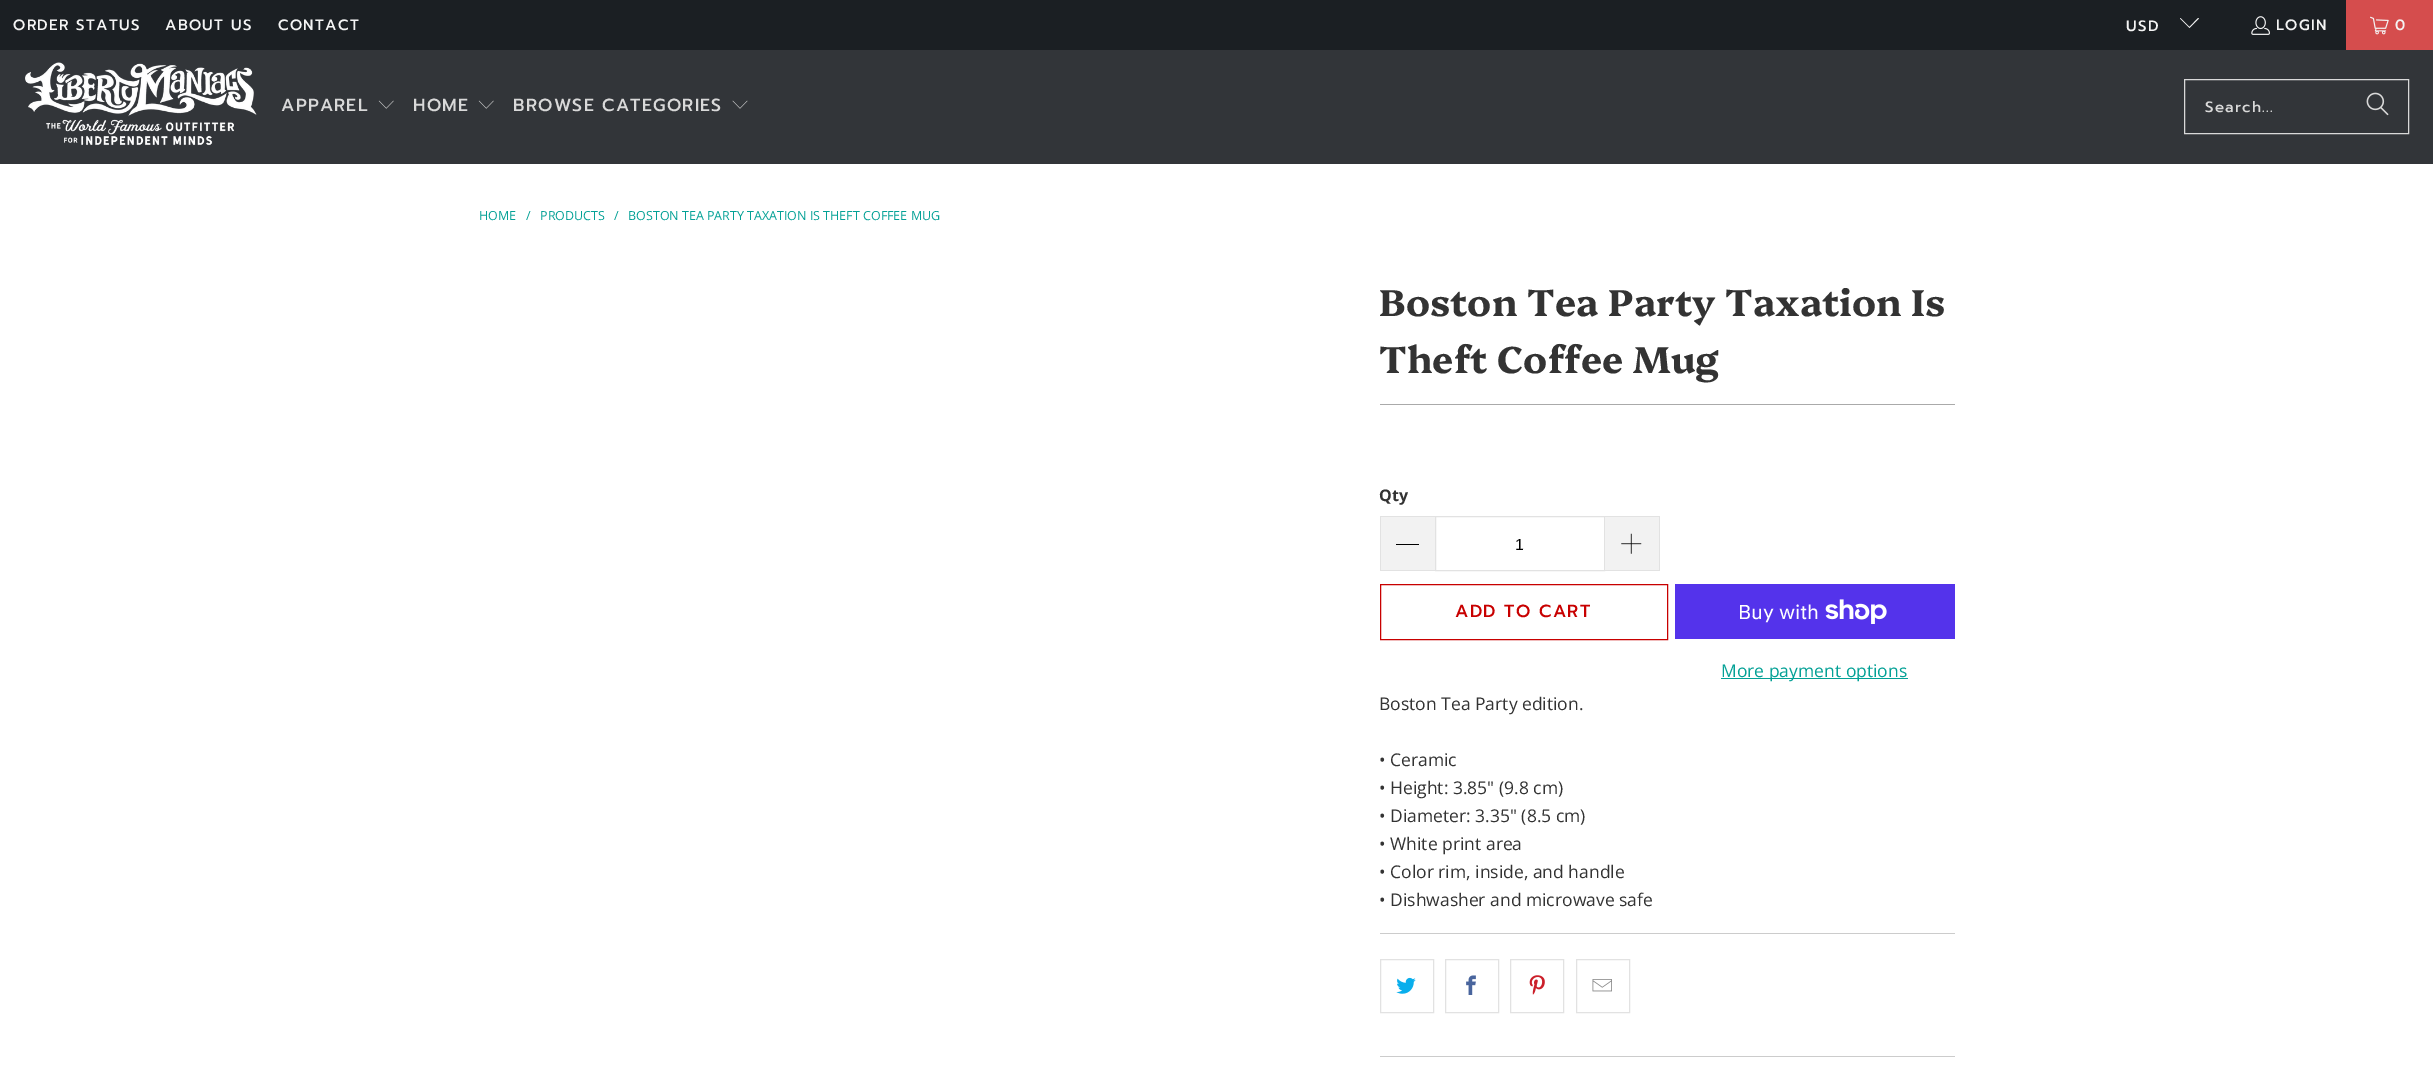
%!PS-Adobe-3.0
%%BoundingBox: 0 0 2433 1070
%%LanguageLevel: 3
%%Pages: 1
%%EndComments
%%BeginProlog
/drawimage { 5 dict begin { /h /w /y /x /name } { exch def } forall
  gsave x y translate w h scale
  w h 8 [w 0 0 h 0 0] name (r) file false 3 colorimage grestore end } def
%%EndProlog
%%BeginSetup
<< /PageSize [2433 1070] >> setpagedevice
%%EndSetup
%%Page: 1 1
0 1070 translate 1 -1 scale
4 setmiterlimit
1 setgray
0 0 2433 1070 rectfill
0.106 0.122 0.137 setrgbcolor
0 0 2346 50 rectfill
0.957 setgray
newpath 2189.5 28 moveto 2180 18.5 lineto 2180.5 18 lineto 2189.5 27 lineto 2198 18 lineto 2199 18.5 lineto closepath fill
(images/1.raw) 2251 16 19 19 drawimage
0.835 0.302 0.302 setrgbcolor
2346 0 87 50 rectfill
(images/2.raw) 2370 16 19 19 drawimage
0.196 0.208 0.224 setrgbcolor
0 50 2433 114 rectfill
(images/3.raw) 25 62 232 84 drawimage
(images/4.raw) 378 100 16 9 drawimage
(images/4.raw) 478 100 16 9 drawimage
(images/5.raw) 732 100 16 9 drawimage
0.851 setgray
2184.5 79.5 224 54 rectstroke
(images/6.raw) 2366 92 23 24 drawimage
0.667 setgray
1380 404 575 1 rectfill
0.949 setgray
1381 517 54 53 rectfill
0.886 setgray
1380 516 55 1 rectfill
1380 570 55 1 rectfill
1380 516 1 55 rectfill
0 setgray
1396 544 23 1 rectfill
0.886 setgray
1435.5 516.5 169 54 rectstroke
0.949 setgray
1605 517 54 53 rectfill
0.886 setgray
1605 516 55 1 rectfill
1659 516 1 55 rectfill
1605 570 55 1 rectfill
(images/7.raw) 1621 533 21 21 drawimage
0.784 0 0 setrgbcolor
1380.5 584.5 287 55 rectstroke
0.329 0.2 0.922 setrgbcolor
1675 584 280 55 rectfill
(images/8.raw) 1825 599 62 25 drawimage
0.012 0.631 0.588 setrgbcolor
1721 678 187 1 rectfill
0.8 setgray
1380 933 575 1 rectfill
0.886 setgray
1380.5 959.5 53 53 rectstroke
(images/9.raw) 1396 977 20 17 drawimage
1445.5 959.5 53 53 rectstroke
(images/10.raw) 1466 975 10 20 drawimage
1510.5 959.5 53 53 rectstroke
(images/11.raw) 1529 975 16 20 drawimage
1576.5 959.5 53 53 rectstroke
(images/12.raw) 1592 979 20 13 drawimage
0.8 setgray
1380 1056 575 1 rectfill
/Prompt-Medium [15 0 0 -15 0 0] selectfont
0.957 setgray
13 30 moveto 1.25 0 (ORDER STATUS) ashow
165 30 moveto 1.25 0 (ABOUT US) ashow
278 30 moveto 1.25 0 (CONTACT) ashow
2126 31 moveto 1.25 0 (USD) ashow
2276 30 moveto 1.25 0 (LOGIN) ashow
2395 30 moveto 1.25 0 (0) ashow
/Prompt-Medium [17.5 0 0 -17.5 0 0] selectfont
0.851 setgray
281 111 moveto 1.25 0 (APPAREL) ashow
413 111 moveto 1.25 0 (HOME) ashow
513 111 moveto 1.25 0 (BROWSE CATEGORIES) ashow
/Prompt-Medium [15 0 0 -15 0 0] selectfont
2205 112 moveto 1.25 0 (Search...) ashow
/OpenSans-Regular [12.5 0 0 -12.5 0 0] selectfont
0.012 0.631 0.588 setrgbcolor
479 220 moveto (HOME) show
526 220 moveto (/) show
540 220 moveto (PRODUCTS) show
614 220 moveto (/) show
628 220 moveto (BOSTON TEA PARTY TAXATION IS THEFT COFFEE MUG) show
/Platypi-Bold [37.5 0 0 -37.5 0 0] selectfont
0.2 setgray
1379 316 moveto (Boston Tea Party Taxation Is) show
1379 373 moveto (Theft Coffee Mug) show
/OpenSans-Bold [16 0 0 -16 0 0] selectfont
1379 501 moveto (Qty) show
/LiberationSans-Regular [16 0 0 -16 0 0] selectfont
0 setgray
1515 550 moveto (1) show
/Prompt-Medium [17.5 0 0 -17.5 0 0] selectfont
0.784 0 0 setrgbcolor
1455 617 moveto 1.25 0 (ADD TO CART) ashow
/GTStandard-Regular [20 0 0 -20 0 0] selectfont
1 setgray
1738 619 moveto (Buy with) show
/OpenSans-Regular [17.5 0 0 -17.5 0 0] selectfont
0.012 0.631 0.588 setrgbcolor
1721 677 moveto (More payment options) show
0.2 setgray
1379 710 moveto (Boston Tea Party edition.) show
1379 766 moveto (• Ceramic) show
1379 794 moveto (• Height: 3.85" \(9.8 cm\)) show
1379 822 moveto (• Diameter: 3.35" \(8.5 cm\)) show
1379 850 moveto (• White print area) show
1379 878 moveto (• Color rim, inside, and handle) show
1379 906 moveto (• Dishwasher and microwave safe) show
showpage
%%EOF
